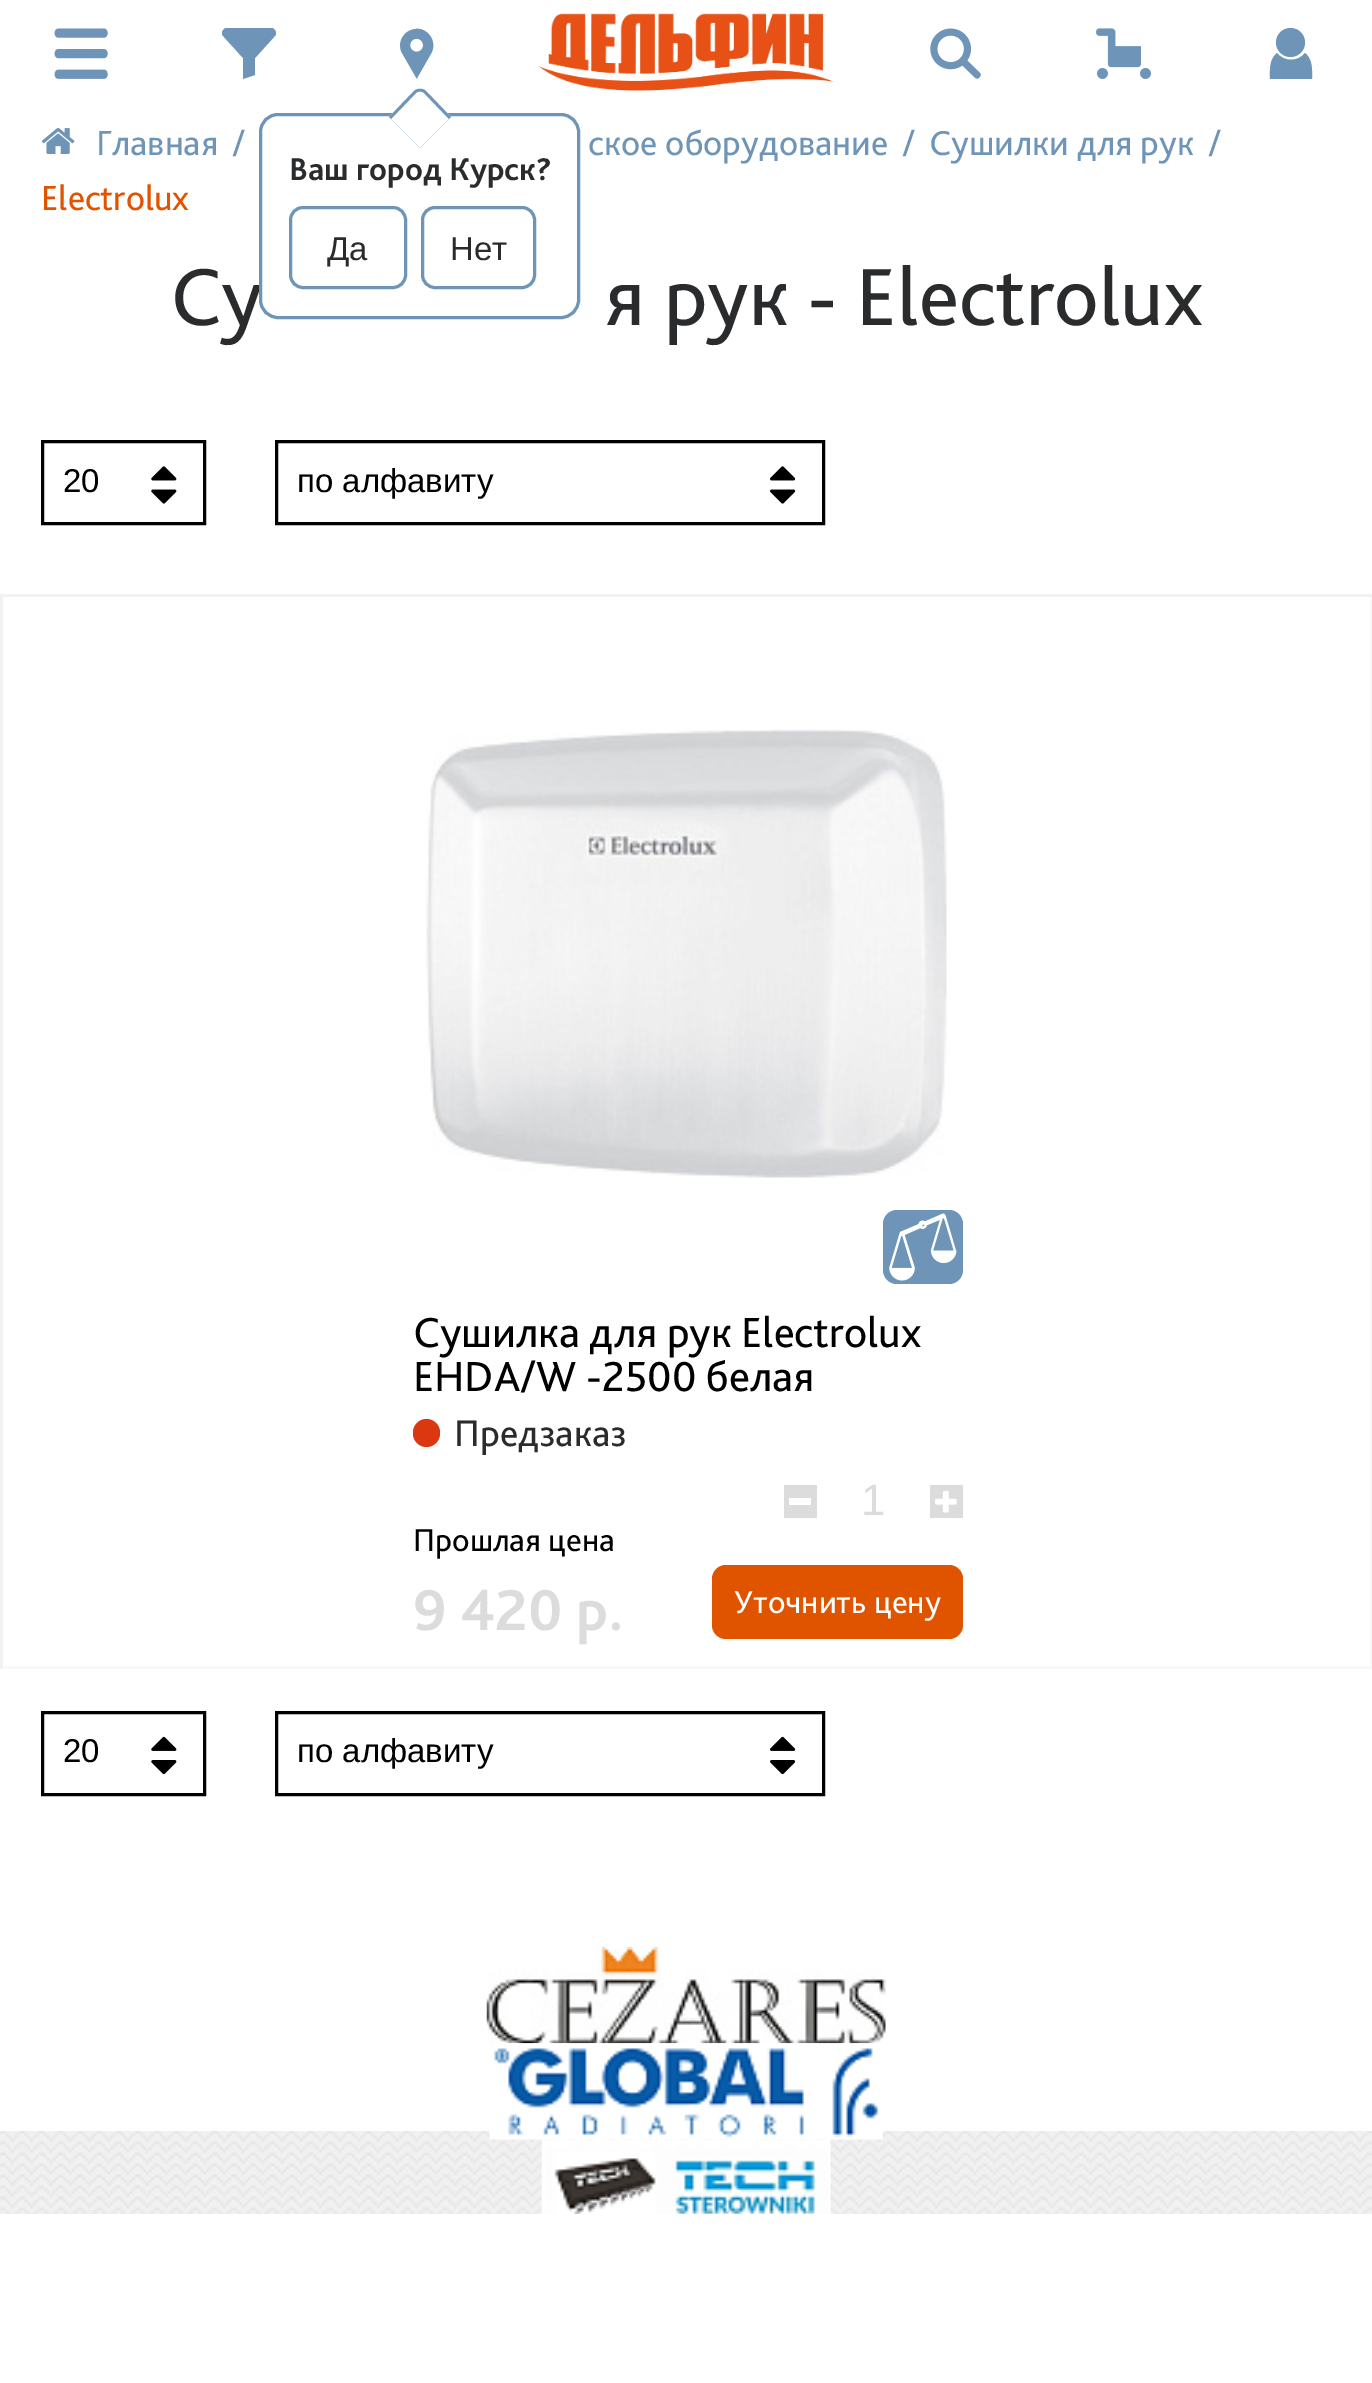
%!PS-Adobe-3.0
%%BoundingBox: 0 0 1372 2383
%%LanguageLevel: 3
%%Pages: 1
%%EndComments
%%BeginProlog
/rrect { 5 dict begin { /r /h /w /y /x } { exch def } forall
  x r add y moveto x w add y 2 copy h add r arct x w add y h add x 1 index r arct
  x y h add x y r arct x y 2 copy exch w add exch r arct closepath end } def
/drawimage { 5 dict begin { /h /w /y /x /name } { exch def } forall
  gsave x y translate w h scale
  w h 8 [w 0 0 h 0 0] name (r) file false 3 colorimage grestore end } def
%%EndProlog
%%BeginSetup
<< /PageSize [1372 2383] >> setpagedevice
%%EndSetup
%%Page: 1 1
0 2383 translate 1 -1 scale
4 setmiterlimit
1 setgray
0 0 1372 2383 rectfill
(images/1.raw) 0 2131 1372 83 drawimage
(images/2.raw) 41 128 34 26 drawimage
0 setgray
3 setlinewidth
42.5 441.5 162 82 rectstroke
(images/3.raw) 151 466 26 15 drawimage
(images/4.raw) 151 489 26 15 drawimage
276.5 441.5 547 82 rectstroke
(images/5.raw) 770 466 26 15 drawimage
(images/6.raw) 770 489 26 15 drawimage
0.945 setgray
0 594 1372 3 rectfill
0 594 3 1075 rectfill
0.973 setgray
1370 597 2 1072 rectfill
newpath 1372 1669 moveto 3 1669 lineto 6 1666 lineto 1370 1666 lineto closepath fill
(images/7.raw) 426 729 521 449 drawimage
0.431 0.584 0.722 setrgbcolor
883 1210 80 74 14 rrect fill
(images/8.raw) 889 1213 68 68 drawimage
0.859 0.22 0.071 setrgbcolor
413 1419 27 28 13.5 rrect fill
0.863 setgray
784 1485 33 33 rectfill
1 setgray
789 1498 22 7 rectfill
0.863 setgray
930 1485 33 33 rectfill
(images/9.raw) 935 1490 22 23 drawimage
0.878 0.329 0 setrgbcolor
712 1565 251 74 14 rrect fill
0 setgray
42.5 1712.5 162 82 rectstroke
(images/10.raw) 151 1736 26 15 drawimage
(images/11.raw) 151 1760 26 15 drawimage
276.5 1712.5 547 82 rectstroke
(images/12.raw) 770 1736 26 15 drawimage
(images/13.raw) 770 1760 26 15 drawimage
(images/14.raw) 486 1947 400 97 drawimage
(images/15.raw) 489 2043 394 97 drawimage
(images/16.raw) 541 2139 290 75 drawimage
(images/17.raw) 54 28 54 51 drawimage
0.431 0.584 0.722 setrgbcolor
newpath 276 33 moveto 276 31 274 28 272 28 curveto 226 28 lineto 224 28 222 31 222 33 curveto 222 35 223 36 224 37 curveto 243 58 lineto 243 79 lineto 255 75 lineto 255 58 lineto 274 37 lineto 275 36 276 35 276 33 curveto closepath fill
(images/18.raw) 400 28 34 51 drawimage
(images/19.raw) 930 28 51 51 drawimage
(images/20.raw) 1096 28 55 51 drawimage
newpath 1305 53 moveto 1298 62 1284 62 1277 53 curveto 1269 60 1270 69 1270 79 curveto 1312 79 lineto 1312 69 1313 60 1305 53 curveto closepath fill
newpath 1290.5 42.5 14.5 0 360 arc closepath fill
(images/21.raw) 539 13 295 78 drawimage
/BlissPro-Regular [36.25 0 0 -36.25 0 0] selectfont
96 155 moveto (Главная) show
232 155 moveto (/) show
588 155 moveto (ское оборудование) show
902 155 moveto (/) show
929 155 moveto (Сушилки для рук) show
1208 155 moveto (/) show
0.878 0.329 0 setrgbcolor
41 210 moveto (Electrolux) show
/BlissPro-Regular [84.75 0 0 -84.75 0 0] selectfont
0.161 0.169 0.173 setrgbcolor
170 325 moveto (Су) show
604 325 moveto (я рук - Electrolux) show
/LiberationSans-Regular [33 0 0 -33 0 0] selectfont
0 setgray
63 492 moveto (20) show
297 492 moveto (по алфавиту) show
/BlissPro-Regular [44 0 0 -44 0 0] selectfont
413 1347 moveto (Сушилка для рук Electrolux) show
413 1391 moveto (EHDA/W -2500 белая) show
/BlissPro-Regular [38.5 0 0 -38.5 0 0] selectfont
0.161 0.169 0.173 setrgbcolor
454 1446 moveto (Предзаказ) show
/LiberationSans-Regular [44 0 0 -44 0 0] selectfont
0.863 setgray
861 1515 moveto (1) show
/BlissPro-Regular [33 0 0 -33 0 0] selectfont
0 setgray
413 1551 moveto (Прошлая цена) show
/BlissPro-Bold [60.5 0 0 -60.5 0 0] selectfont
0.863 setgray
413 1630 moveto (9 420 р.) show
/BlissPro-Regular [33 0 0 -33 0 0] selectfont
1 setgray
734 1613 moveto (Уточнить цену) show
/LiberationSans-Regular [33 0 0 -33 0 0] selectfont
0 setgray
63 1762 moveto (20) show
297 1762 moveto (по алфавиту) show
1 setgray
260.5 114.5 318 203 17.5 rrect gsave fill grestore
0.431 0.584 0.722 setrgbcolor
stroke
1 setgray
newpath 389 117 moveto 414 91 lineto 417 88 423 88 426 91 curveto 451 117 lineto 420 148 lineto closepath fill
0.431 0.584 0.722 setrgbcolor
newpath 389 117 moveto 414 91 lineto 417 88 423 88 426 91 curveto 451 117 lineto 420 148 lineto closepath 391 119 moveto 416 93 lineto 418 91 422 91 424 93 curveto 449 119 lineto 420 148 lineto closepath eofill
/BlissPro-Bold [33 0 0 -33 0 0] selectfont
0.161 0.169 0.173 setrgbcolor
289 180 moveto (Ваш город Курск?) show
0.431 0.584 0.722 setrgbcolor
290.5 207.5 115 80 12.5 rrect stroke
/LiberationSans-Regular [33 0 0 -33 0 0] selectfont
0.161 0.169 0.173 setrgbcolor
327 260 moveto (Да) show
0.431 0.584 0.722 setrgbcolor
422.5 207.5 112 80 12.5 rrect stroke
0.161 0.169 0.173 setrgbcolor
450 260 moveto (Нет) show
showpage
%%EOF
